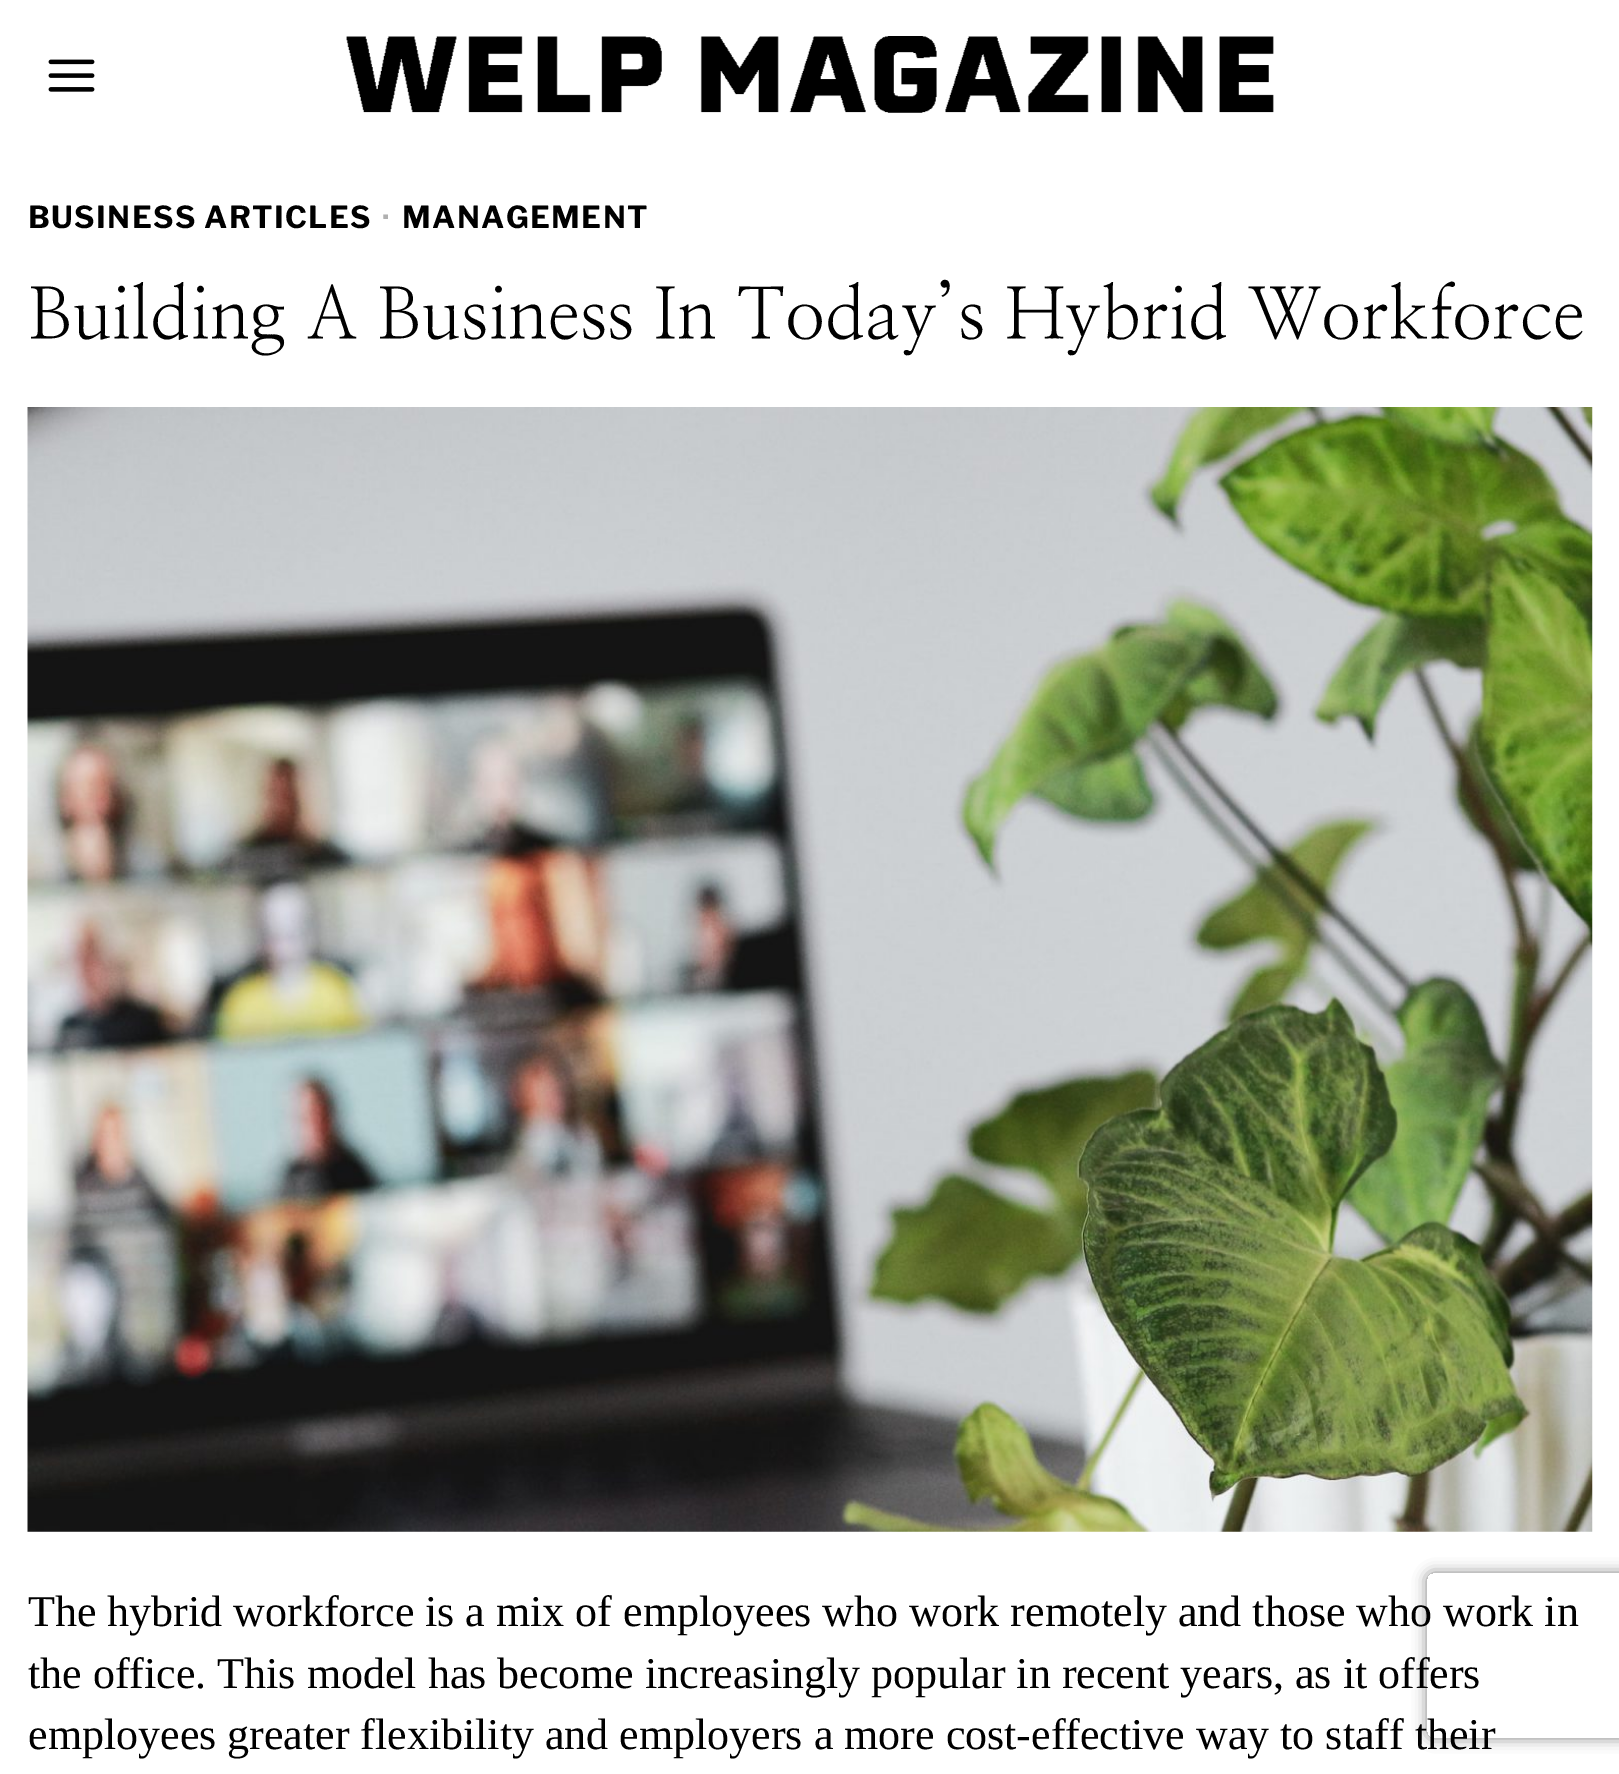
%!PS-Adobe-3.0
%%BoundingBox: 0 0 1619 1774
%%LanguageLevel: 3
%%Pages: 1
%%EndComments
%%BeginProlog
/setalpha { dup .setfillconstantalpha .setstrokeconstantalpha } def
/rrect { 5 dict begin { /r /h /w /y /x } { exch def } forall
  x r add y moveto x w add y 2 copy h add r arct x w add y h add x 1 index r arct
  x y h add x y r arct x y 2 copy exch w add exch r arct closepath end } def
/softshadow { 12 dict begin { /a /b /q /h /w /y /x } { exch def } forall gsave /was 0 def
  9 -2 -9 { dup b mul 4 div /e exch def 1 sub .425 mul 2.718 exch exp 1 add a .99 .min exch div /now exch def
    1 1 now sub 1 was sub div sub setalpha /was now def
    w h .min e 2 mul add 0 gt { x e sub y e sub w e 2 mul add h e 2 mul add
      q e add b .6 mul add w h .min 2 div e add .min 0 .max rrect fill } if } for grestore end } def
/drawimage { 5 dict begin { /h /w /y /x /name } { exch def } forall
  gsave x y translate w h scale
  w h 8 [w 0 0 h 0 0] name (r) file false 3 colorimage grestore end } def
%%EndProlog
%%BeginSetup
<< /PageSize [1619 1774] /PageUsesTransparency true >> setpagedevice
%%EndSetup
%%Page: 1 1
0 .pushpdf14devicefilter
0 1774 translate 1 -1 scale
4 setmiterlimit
1 setgray
0 0 1619 1774 rectfill
(images/1.raw) 48 59 47 33 drawimage
(images/2.raw) 346 36 928 77 drawimage
(images/3.raw) 27 407 1566 1125 drawimage
gsave
newpath 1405 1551 moveto 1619 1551 lineto 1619 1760 lineto 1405 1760 lineto closepath 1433 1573 moveto 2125 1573 lineto 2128.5 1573 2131 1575.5 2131 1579 curveto 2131 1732 lineto 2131 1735.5 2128.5 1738 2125 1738 curveto 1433 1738 lineto 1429.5 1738 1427 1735.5 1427 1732 curveto 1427 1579 lineto 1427 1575.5 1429.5 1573 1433 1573 curveto closepath eoclip newpath
0.502 setgray
1427 1573 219 165 6 7 1 softshadow
grestore
/LibreFranklin-Bold [30.25 0 0 -30.25 0 0] selectfont
0 setgray
28 228 moveto 1.4 0 (BUSINESS ARTICLES) ashow
0.69 setgray
382 228 moveto 1.4 0 (·) ashow
0 setgray
402 228 moveto 1.4 0 (MANAGEMENT) ashow
/NanumMyeongjo-Regular [71.5 0 0 -71.5 0 0] selectfont
28 339 moveto (Building A Business In Today’s Hybrid Workforce) show
/LiberationSerif-Regular [44 0 0 -44 0 0] selectfont
28 1626 moveto (The hybrid workforce is a mix of employees who work remotely and those who work in) show
28 1688 moveto (the office. This model has become increasingly popular in recent years, as it offers) show
28 1749 moveto (employees greater flexibility and employers a more cost-effective way to staff their) show
.poppdf14devicefilter showpage
%%EOF
